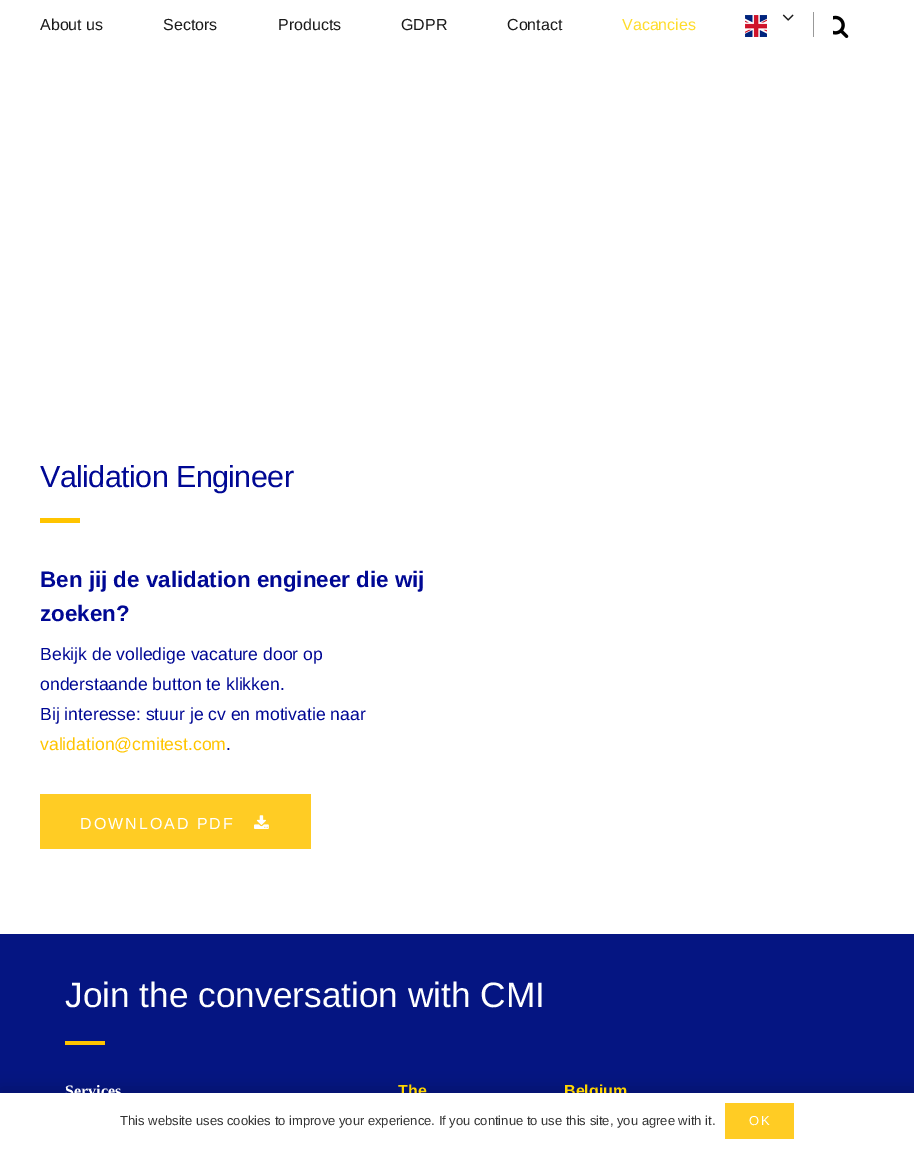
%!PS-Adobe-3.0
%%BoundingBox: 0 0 914 1149
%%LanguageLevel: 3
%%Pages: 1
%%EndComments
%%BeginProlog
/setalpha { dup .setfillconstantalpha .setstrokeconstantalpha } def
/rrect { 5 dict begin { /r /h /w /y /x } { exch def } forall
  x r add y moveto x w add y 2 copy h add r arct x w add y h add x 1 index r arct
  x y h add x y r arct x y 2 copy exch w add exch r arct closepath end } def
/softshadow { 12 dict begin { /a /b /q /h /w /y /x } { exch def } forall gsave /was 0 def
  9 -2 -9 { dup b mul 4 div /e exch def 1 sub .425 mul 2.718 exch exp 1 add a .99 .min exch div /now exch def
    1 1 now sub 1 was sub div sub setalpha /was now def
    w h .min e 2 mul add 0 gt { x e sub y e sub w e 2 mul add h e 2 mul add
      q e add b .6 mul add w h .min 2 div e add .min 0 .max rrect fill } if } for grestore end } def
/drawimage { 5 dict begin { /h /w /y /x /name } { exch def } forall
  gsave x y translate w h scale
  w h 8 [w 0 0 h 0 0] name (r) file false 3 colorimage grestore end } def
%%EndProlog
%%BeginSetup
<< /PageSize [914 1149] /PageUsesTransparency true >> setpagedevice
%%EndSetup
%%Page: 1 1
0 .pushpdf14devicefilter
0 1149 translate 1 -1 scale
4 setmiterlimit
1 setgray
0 0 914 1149 rectfill
(images/1.raw) 745 15 22 22 drawimage
(images/2.raw) 782 14 12 7 drawimage
0.6 setgray
813 12 1 25 rectfill
(images/3.raw) 833 15 16 23 drawimage
1 0.769 0 setrgbcolor
40 518 40 5 rectfill
1 0.8 0.141 setrgbcolor
40 794 271 55 rectfill
(images/4.raw) 254 815 15 14 drawimage
0.02 0.082 0.51 setrgbcolor
0 934 914 159 rectfill
1 0.769 0 setrgbcolor
65 1041 40 4 rectfill
0 setgray
0 1088 914 56 0 7.5 0.15 softshadow
/LiberationSans-Regular [16 0 0 -16 0 0] selectfont
0.102 setgray
40 30 moveto (About us) show
163 30 moveto (Sectors) show
278 30 moveto (Products) show
401 30 moveto (GDPR) show
507 30 moveto (Contact) show
1 0.863 0.169 setrgbcolor
622 30 moveto (Vacancies) show
/LiberationSans-Regular [30.5 0 0 -30.5 0 0] selectfont
0 0.031 0.58 setrgbcolor
40 487 moveto -0.6 0 (Validation Engineer) ashow
/LiberationSans-Bold [22.4 0 0 -22.4 0 0] selectfont
40 587 moveto (Ben jij de validation engineer die wij) show
40 621 moveto (zoeken?) show
/LiberationSans-Regular [17.6 0 0 -17.6 0 0] selectfont
40 660 moveto (Bekijk de volledige vacature door op) show
40 690 moveto (onderstaande button te klikken.) show
40 720 moveto (Bij interesse: stuur je cv en motivatie naar) show
1 0.769 0 setrgbcolor
40 750 moveto (validation@cmitest.com) show
0 0.031 0.58 setrgbcolor
226 750 moveto (.) show
/LiberationSans-Regular [16 0 0 -16 0 0] selectfont
1 setgray
80 829 moveto 2 0 (DOWNLOAD PDF) ashow
/LiberationSans-Regular [35.25 0 0 -35.25 0 0] selectfont
65 1007 moveto (Join the conversation with CMI) show
/LiberationSerif-Bold [16 0 0 -16 0 0] selectfont
65 1096 moveto (Services) show
/LiberationSans-Bold [16 0 0 -16 0 0] selectfont
1 0.835 0 setrgbcolor
398 1096 moveto (The) show
564 1096 moveto (Belgium) show
1 setgray
0 1093 914 56 rectfill
/LiberationSans-Regular [13 0 0 -13 0 0] selectfont
0.2 setgray
120 1125 moveto (This website uses cookies to improve your experience. If you continue to use this site, you agree with it.) show
1 0.8 0.141 setrgbcolor
725 1103 69 36 rectfill
1 setgray
749 1125 moveto 2 0 (OK) ashow
.poppdf14devicefilter showpage
%%EOF
